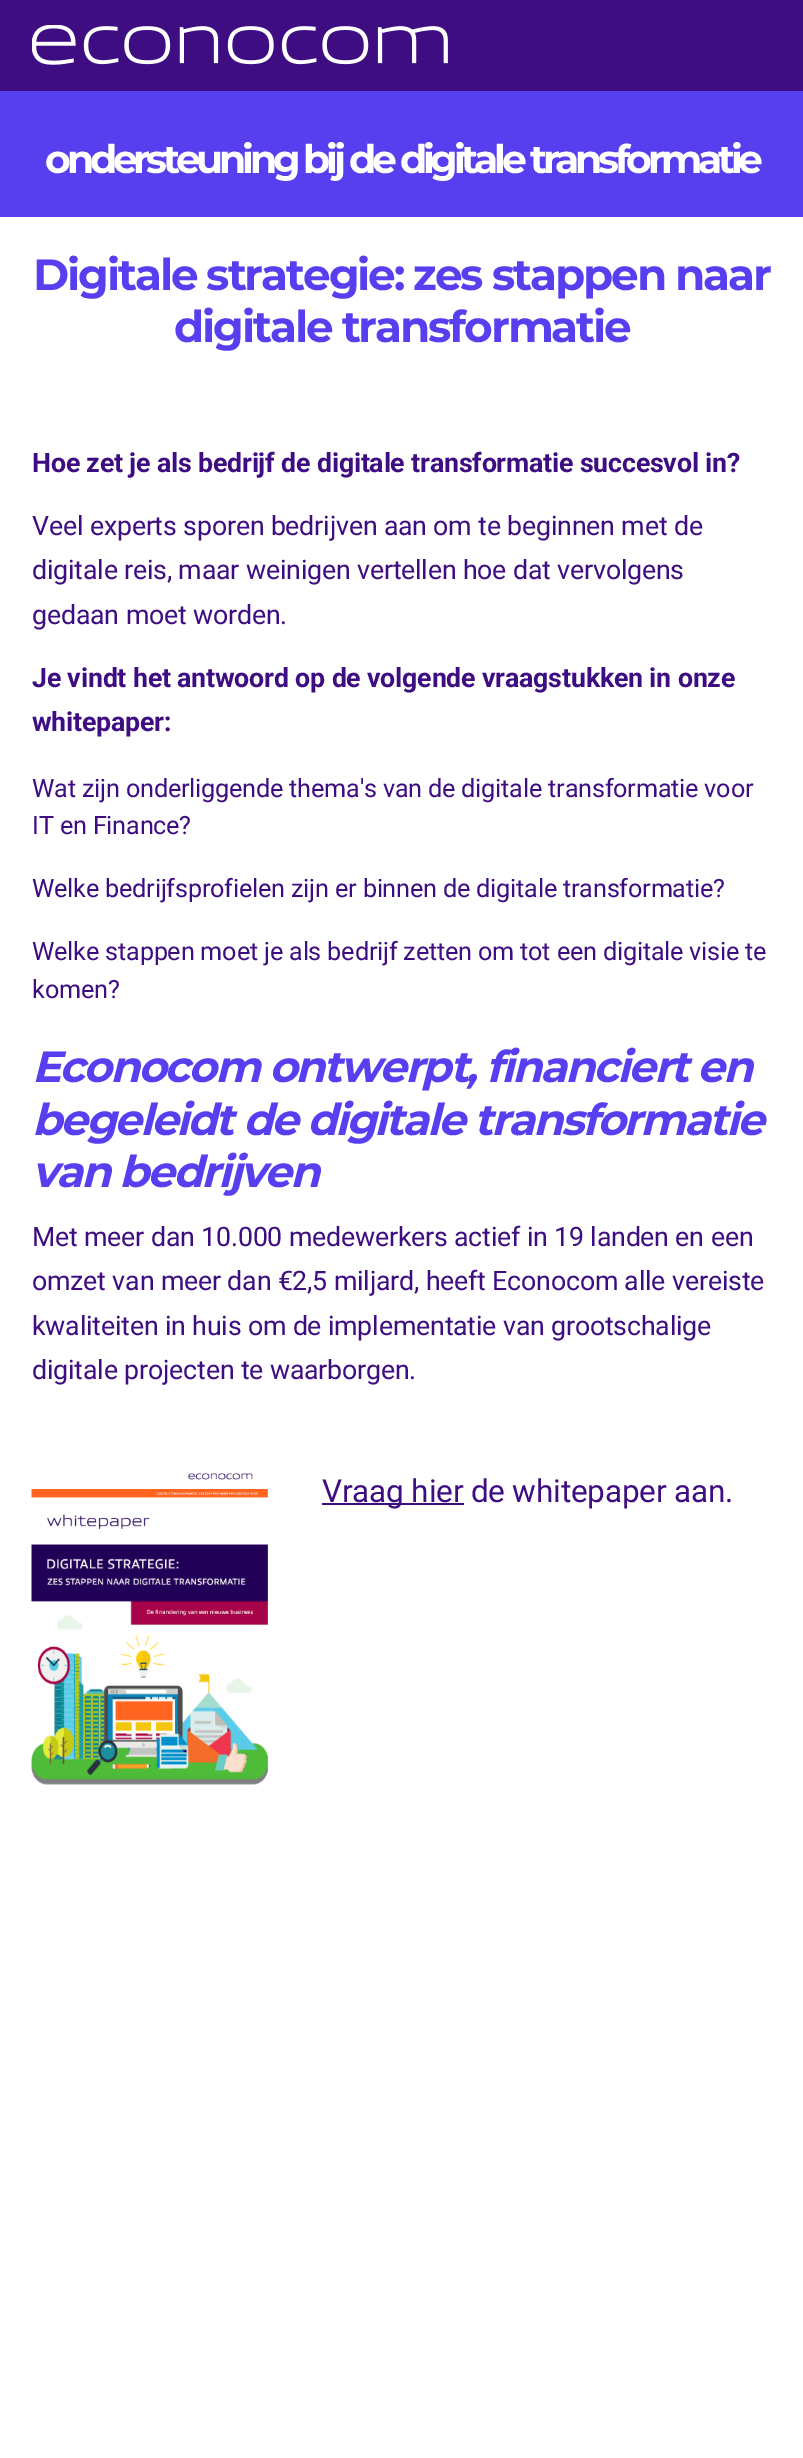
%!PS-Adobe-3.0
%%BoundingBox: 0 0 803 2458
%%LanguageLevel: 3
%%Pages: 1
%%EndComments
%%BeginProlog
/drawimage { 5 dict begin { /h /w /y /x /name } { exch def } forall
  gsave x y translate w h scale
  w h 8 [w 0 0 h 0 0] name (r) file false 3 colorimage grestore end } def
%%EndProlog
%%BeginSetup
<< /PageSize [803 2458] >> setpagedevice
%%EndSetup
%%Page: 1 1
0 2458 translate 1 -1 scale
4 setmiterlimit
1 setgray
0 0 803 2458 rectfill
0.243 0.051 0.506 setrgbcolor
0 0 803 91 rectfill
(images/1.raw) 32 25 416 40 drawimage
0.341 0.243 0.937 setrgbcolor
0 91 803 126 rectfill
(images/2.raw) 31 1473 237 312 drawimage
0.243 0.051 0.506 setrgbcolor
322 1503 142 2 rectfill
/Montserrat-Bold [39.4 0 0 -39.4 0 0] selectfont
1 setgray
45 173 moveto -4.2 0 (ondersteuning bij de digitale transformatie) ashow
/Montserrat-Bold [43.75 0 0 -43.75 0 0] selectfont
0.341 0.243 0.937 setrgbcolor
33 290 moveto -2.1 0 (Digitale strategie: zes stappen naar) ashow
174 342 moveto -2.1 0 (digitale transformatie) ashow
/Roboto-Bold [26.75 0 0 -26.75 0 0] selectfont
0.243 0.051 0.506 setrgbcolor
32 472 moveto -0.18 0 (Hoe zet je als bedrijf de digitale transformatie succesvol in?) ashow
/Roboto-Regular [26.75 0 0 -26.75 0 0] selectfont
32 535 moveto -0.18 0 (Veel experts sporen bedrijven aan om te beginnen met de) ashow
32 579 moveto -0.18 0 (digitale reis, maar weinigen vertellen hoe dat vervolgens) ashow
32 624 moveto -0.18 0 (gedaan moet worden.) ashow
/Roboto-Bold [26.75 0 0 -26.75 0 0] selectfont
32 687 moveto -0.18 0 (Je vindt het antwoord op de volgende vraagstukken in onze) ashow
32 731 moveto -0.18 0 (whitepaper:) ashow
/Roboto-Regular [25.2 0 0 -25.2 0 0] selectfont
32 797 moveto -0.18 0 (Wat zijn onderliggende thema's van de digitale transformatie voor) ashow
32 834 moveto -0.18 0 (IT en Finance?) ashow
32 897 moveto -0.18 0 (Welke bedrijfsprofielen zijn er binnen de digitale transformatie?) ashow
32 960 moveto -0.18 0 (Welke stappen moet je als bedrijf zetten om tot een digitale visie te) ashow
32 998 moveto -0.18 0 (komen?) ashow
/Montserrat-BoldItalic [43.75 0 0 -43.75 0 0] selectfont
0.341 0.243 0.937 setrgbcolor
32 1082 moveto -2.1 0 (Econocom ontwerpt, financiert en) ashow
32 1135 moveto -2.1 0 (begeleidt de digitale transformatie) ashow
32 1187 moveto -2.1 0 (van bedrijven) ashow
/Roboto-Regular [26.75 0 0 -26.75 0 0] selectfont
0.243 0.051 0.506 setrgbcolor
32 1246 moveto -0.18 0 (Met meer dan 10.000 medewerkers actief in 19 landen en een) ashow
32 1290 moveto -0.18 0 (omzet van meer dan €2,5 miljard, heeft Econocom alle vereiste) ashow
32 1335 moveto -0.18 0 (kwaliteiten in huis om de implementatie van grootschalige) ashow
32 1379 moveto -0.18 0 (digitale projecten te waarborgen.) ashow
/Roboto-Regular [31.5 0 0 -31.5 0 0] selectfont
322 1502 moveto -0.18 0 (Vraag hier de whitepaper aan.) ashow
showpage
%%EOF
